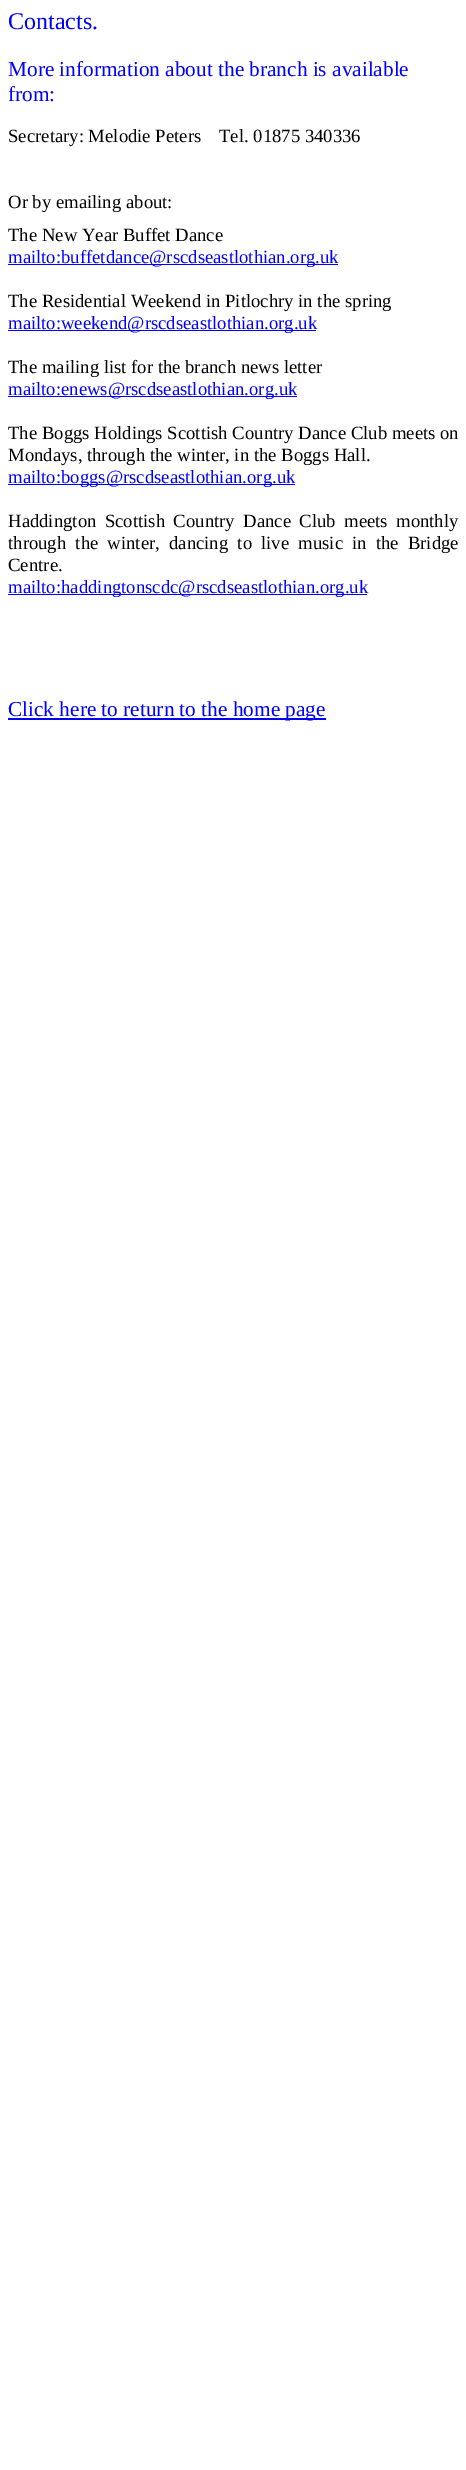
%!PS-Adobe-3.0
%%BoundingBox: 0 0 466 2470
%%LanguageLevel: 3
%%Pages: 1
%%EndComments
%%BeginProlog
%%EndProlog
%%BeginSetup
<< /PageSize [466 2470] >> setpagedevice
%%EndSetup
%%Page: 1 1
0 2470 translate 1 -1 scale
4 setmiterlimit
1 setgray
0 0 466 2470 rectfill
0 0 1 setrgbcolor
8 264 330 1 rectfill
8 330 308 1 rectfill
8 396 289 1 rectfill
8 484 287 1 rectfill
8 594 359 1 rectfill
8 718 318 2 rectfill
/LiberationSerif-Regular [24 0 0 -24 0 0] selectfont
8 29 moveto (Contacts.) show
/LiberationSerif-Regular [21.3 0 0 -21.3 0 0] selectfont
8 76 moveto (More information about the branch is available) show
8 101 moveto (from:) show
/LiberationSerif-Regular [18.7 0 0 -18.7 0 0] selectfont
0 setgray
8 142 moveto (Secretary: Melodie Peters) show
219 142 moveto (Tel. 01875 340336) show
8 208 moveto (Or by emailing about:) show
8 241 moveto (The New Year Buffet Dance) show
0 0 1 setrgbcolor
8 263 moveto (mailto:buffetdance@rscdseastlothian.org.uk) show
0 setgray
8 307 moveto (The Residential Weekend in Pitlochry in the spring) show
0 0 1 setrgbcolor
8 329 moveto (mailto:weekend@rscdseastlothian.org.uk) show
0 setgray
8 373 moveto (The mailing list for the branch news letter) show
0 0 1 setrgbcolor
8 395 moveto (mailto:enews@rscdseastlothian.org.uk) show
0 setgray
8 439 moveto (The Boggs Holdings Scottish Country Dance Club meets on) show
8 461 moveto (Mondays, through the winter, in the Boggs Hall.) show
0 0 1 setrgbcolor
8 483 moveto (mailto:boggs@rscdseastlothian.org.uk) show
0 setgray
8 527 moveto 3.75 0 32 (Haddington Scottish Country Dance Club meets monthly) widthshow
8 549 moveto 4.5 0 32 (through the winter, dancing to live music in the Bridge) widthshow
8 571 moveto (Centre.) show
0 0 1 setrgbcolor
8 593 moveto (mailto:haddingtonscdc@rscdseastlothian.org.uk) show
/LiberationSerif-Regular [21.3 0 0 -21.3 0 0] selectfont
8 716 moveto (Click here to return to the home page) show
showpage
%%EOF
